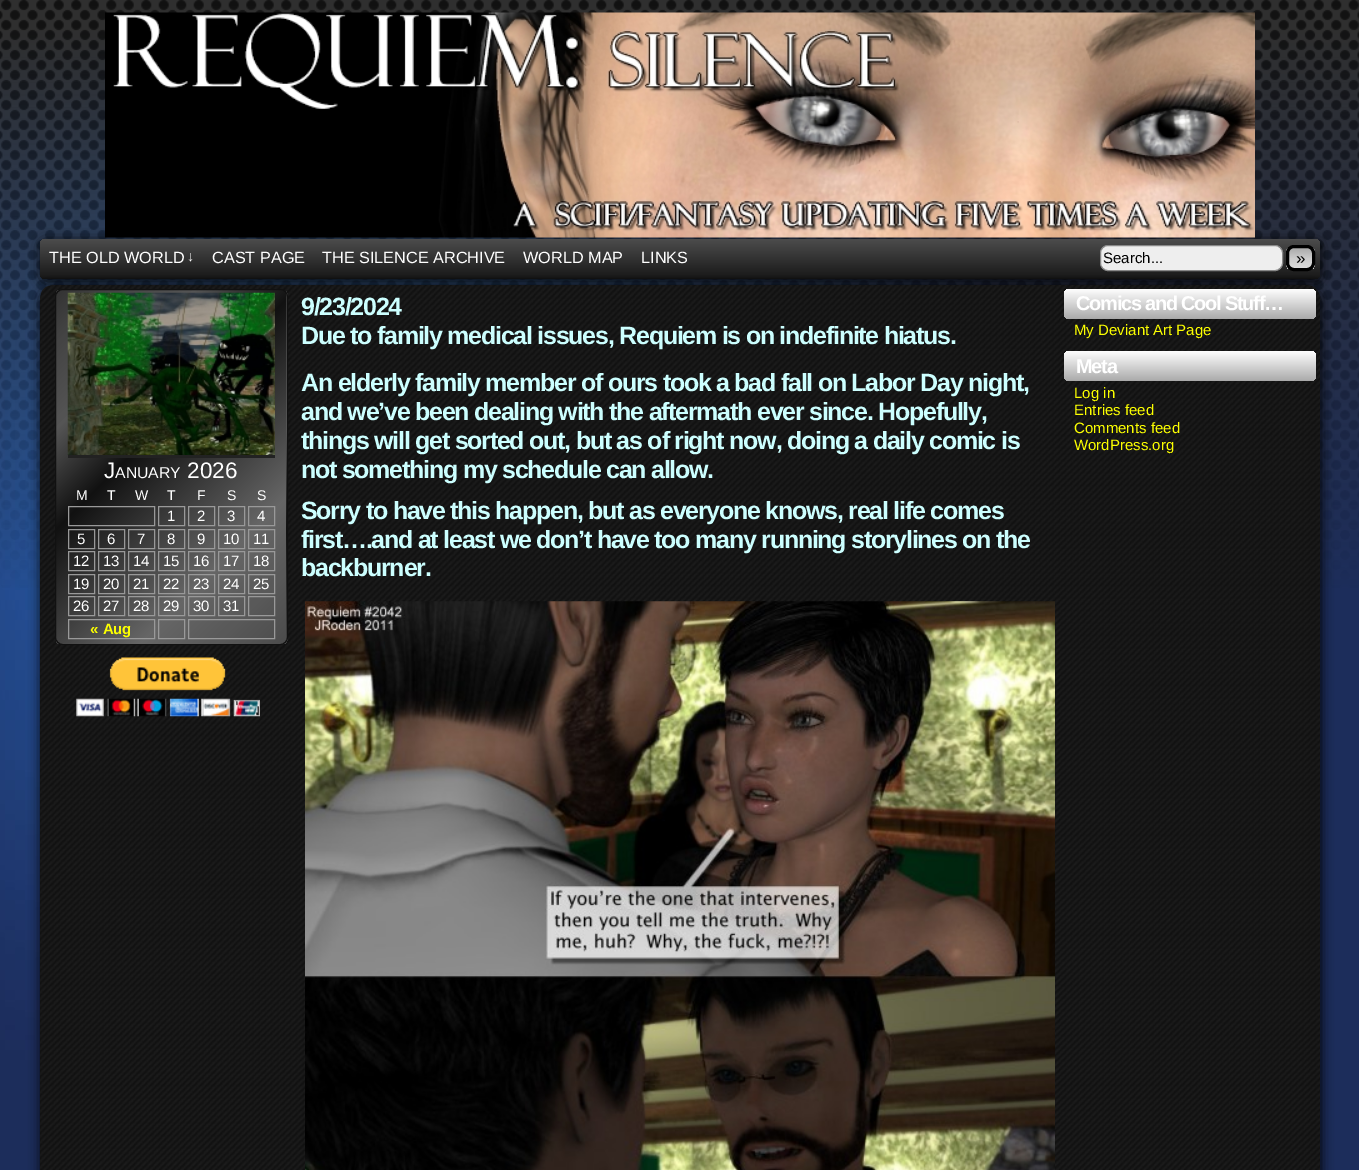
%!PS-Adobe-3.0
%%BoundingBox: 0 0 1359 1170
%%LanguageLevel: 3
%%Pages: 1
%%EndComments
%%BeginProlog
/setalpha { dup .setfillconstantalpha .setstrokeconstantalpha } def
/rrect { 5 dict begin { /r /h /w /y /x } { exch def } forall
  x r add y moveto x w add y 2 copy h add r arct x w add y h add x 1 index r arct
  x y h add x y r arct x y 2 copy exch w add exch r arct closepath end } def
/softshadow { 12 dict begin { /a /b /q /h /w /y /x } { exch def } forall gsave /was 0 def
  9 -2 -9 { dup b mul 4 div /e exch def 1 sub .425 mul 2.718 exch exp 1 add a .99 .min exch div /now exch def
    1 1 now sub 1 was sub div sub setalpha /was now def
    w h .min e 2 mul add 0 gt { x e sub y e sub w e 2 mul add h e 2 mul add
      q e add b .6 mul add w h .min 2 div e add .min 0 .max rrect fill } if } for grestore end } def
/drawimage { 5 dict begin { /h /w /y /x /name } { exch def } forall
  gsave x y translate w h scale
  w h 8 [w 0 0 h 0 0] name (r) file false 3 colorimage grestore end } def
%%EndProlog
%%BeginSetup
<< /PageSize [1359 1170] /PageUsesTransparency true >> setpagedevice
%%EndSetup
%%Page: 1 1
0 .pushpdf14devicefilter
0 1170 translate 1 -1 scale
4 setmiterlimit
1 setgray
0 0 1359 1170 rectfill
(images/1.raw) 0 31 1359 1139 drawimage
(images/2.raw) 0 0 1359 588 drawimage
0 setgray
41 241 1280 40 5 6 1 softshadow
(images/3.raw) 105 12 1150 226 drawimage
gsave 40 239 1280 40 5 rrect clip newpath
<< /ShadingType 2 /ColorSpace /DeviceRGB /Coords [680 239 680 279] /Extend [true true] /Function << /FunctionType 3 /Domain [0 1] /Functions [<< /FunctionType 2 /Domain [0 1] /C0 [0.298 0.298 0.298] /C1 [0.11 0.11 0.11] /N 1 >> << /FunctionType 2 /Domain [0 1] /C0 [0.11 0.11 0.11] /C1 [0.075 0.075 0.075] /N 1 >>] /Bounds [0.91] /Encode [0 1 0 1] >> >> shfill grestore
41 288 1280 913 13 6 1 softshadow
0.933 setgray
1100.5 245.5 182 25 7.5 rrect gsave fill grestore
0.533 setgray
stroke
gsave
1286 245 29 26 8 rrect clip newpath
gsave newpath 1286 248 moveto 1315 248 lineto 1315 269 lineto 1286 269 lineto closepath clip newpath
<< /ShadingType 2 /ColorSpace /DeviceRGB /Coords [1301 248 1301 269] /Extend [true true] /Function << /FunctionType 3 /Domain [0 1] /Functions [<< /FunctionType 2 /Domain [0 1] /C0 [0.667 0.667 0.667] /C1 [0.8 0.8 0.8] /N 1 >> << /FunctionType 2 /Domain [0 1] /C0 [0.8 0.8 0.8] /C1 [0.867 0.867 0.867] /N 1 >>] /Bounds [0.5] /Encode [0 1 0 1] >> >> shfill grestore
grestore
0 setgray
3 setlinewidth
1287.5 246.5 26 23 6.5 rrect stroke
0.067 setgray
40 285 1280 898 13 rrect fill
(images/4.raw) 40 285 1280 885 drawimage
gsave
55 289 233 356 8 rrect clip newpath
gsave newpath 56 290 moveto 286 290 lineto 286 644 lineto 56 644 lineto closepath clip newpath
<< /ShadingType 2 /ColorSpace /DeviceRGB /Coords [25 321 317 613] /Extend [true true] /Function << /FunctionType 3 /Domain [0 1] /Functions [<< /FunctionType 2 /Domain [0 1] /C0 [0.2 0.2 0.2] /C1 [0.267 0.267 0.267] /N 1 >> << /FunctionType 2 /Domain [0 1] /C0 [0.267 0.267 0.267] /C1 [0.333 0.333 0.333] /N 1 >> << /FunctionType 2 /Domain [0 1] /C0 [0.333 0.333 0.333] /C1 [0.067 0.067 0.067] /N 1 >> << /FunctionType 2 /Domain [0 1] /C0 [0.067 0.067 0.067] /C1 [0.4 0.4 0.4] /N 1 >> << /FunctionType 2 /Domain [0 1] /C0 [0.4 0.4 0.4] /C1 [0.349 0.349 0.349] /N 1 >> << /FunctionType 2 /Domain [0 1] /C0 [0.349 0.349 0.349] /C1 [0.298 0.298 0.298] /N 1 >>] /Bounds [0.09 0.24 0.41 0.75 0.88] /Encode [0 1 0 1 0 1 0 1 0 1 0 1] >> >> shfill grestore
gsave newpath 286 290 moveto 288 290 lineto 288 644 lineto 286 644 lineto closepath clip newpath
<< /ShadingType 2 /ColorSpace /DeviceRGB /Coords [255 321 547 613] /Extend [true true] /Function << /FunctionType 3 /Domain [0 1] /Functions [<< /FunctionType 2 /Domain [0 1] /C0 [0.2 0.2 0.2] /C1 [0.267 0.267 0.267] /N 1 >> << /FunctionType 2 /Domain [0 1] /C0 [0.267 0.267 0.267] /C1 [0.333 0.333 0.333] /N 1 >> << /FunctionType 2 /Domain [0 1] /C0 [0.333 0.333 0.333] /C1 [0.067 0.067 0.067] /N 1 >> << /FunctionType 2 /Domain [0 1] /C0 [0.067 0.067 0.067] /C1 [0.4 0.4 0.4] /N 1 >> << /FunctionType 2 /Domain [0 1] /C0 [0.4 0.4 0.4] /C1 [0.349 0.349 0.349] /N 1 >> << /FunctionType 2 /Domain [0 1] /C0 [0.349 0.349 0.349] /C1 [0.298 0.298 0.298] /N 1 >>] /Bounds [0.09 0.24 0.41 0.75 0.88] /Encode [0 1 0 1 0 1 0 1 0 1 0 1] >> >> shfill grestore
grestore
1 setlinewidth
55.5 289.5 232 355 7.5 rrect stroke
0.133 setgray
68 455 207 3 rectfill
(images/5.raw) 67 292 208 163 drawimage
0.6 setgray
68.5 506.5 86 19 rectstroke
158.5 506.5 26 19 rectstroke
188.5 506.5 26 19 rectstroke
218.5 506.5 26 19 rectstroke
248.5 506.5 26 19 rectstroke
68.5 529.5 26 19 rectstroke
98.5 529.5 26 19 rectstroke
128.5 529.5 26 19 rectstroke
158.5 529.5 26 19 rectstroke
188.5 529.5 26 19 rectstroke
218.5 529.5 26 19 rectstroke
248.5 529.5 26 19 rectstroke
68.5 551.5 26 19 rectstroke
98.5 551.5 26 19 rectstroke
128.5 551.5 26 19 rectstroke
158.5 551.5 26 19 rectstroke
188.5 551.5 26 19 rectstroke
218.5 551.5 26 19 rectstroke
248.5 551.5 26 19 rectstroke
68.5 574.5 26 19 rectstroke
98.5 574.5 26 19 rectstroke
128.5 574.5 26 19 rectstroke
158.5 574.5 26 19 rectstroke
188.5 574.5 26 19 rectstroke
218.5 574.5 26 19 rectstroke
248.5 574.5 26 19 rectstroke
68.5 596.5 26 19 rectstroke
98.5 596.5 26 19 rectstroke
128.5 596.5 26 19 rectstroke
158.5 596.5 26 19 rectstroke
188.5 596.5 26 19 rectstroke
218.5 596.5 26 19 rectstroke
248.5 596.5 26 19 rectstroke
68.5 619.5 86 19 rectstroke
158.5 619.5 26 19 rectstroke
188.5 619.5 86 19 rectstroke
(images/6.raw) 76 657 184 60 drawimage
(images/7.raw) 305 601 750 569 drawimage
gsave 1064 289 252 30 5 rrect clip newpath
<< /ShadingType 2 /ColorSpace /DeviceRGB /Coords [1190 289 1190 319] /Extend [true true] /Function << /FunctionType 2 /Domain [0 1] /C0 [0.996 0.996 0.996] /C1 [0.667 0.667 0.667] /N 1 >> >> shfill grestore
gsave 1064 351 252 30 5 rrect clip newpath
<< /ShadingType 2 /ColorSpace /DeviceRGB /Coords [1190 351 1190 381] /Extend [true true] /Function << /FunctionType 2 /Domain [0 1] /C0 [0.996 0.996 0.996] /C1 [0.667 0.667 0.667] /N 1 >> >> shfill grestore
/LiberationSans-Regular [16.25 0 0 -16.25 0 0] selectfont
1 setgray
49 263 moveto (THE OLD WORLD) show
/LiberationSans-Regular [14 0 0 -14 0 0] selectfont
187 261 moveto (↓) show
/LiberationSans-Regular [16.25 0 0 -16.25 0 0] selectfont
212 263 moveto (CAST PAGE) show
322 263 moveto (THE SILENCE ARCHIVE) show
523 263 moveto (WORLD MAP) show
641 263 moveto (LINKS) show
/LiberationSans-Regular [15 0 0 -15 0 0] selectfont
0 setgray
1103 263 moveto (Search...) show
/LiberationSans-Regular [17 0 0 -17 0 0] selectfont
1296 264 moveto (») show
/LiberationSans-Regular [22.5 0 0 -22.5 0 0] selectfont
1 setgray
104 478 moveto (J) show
/LiberationSans-Regular [15.75 0 0 -15.75 0 0] selectfont
115 478 moveto (ANUARY) show
/LiberationSans-Regular [22.5 0 0 -22.5 0 0] selectfont
187 478 moveto (2026) show
/LiberationSans-Regular [14 0 0 -14 0 0] selectfont
76 500 moveto (M) show
107 500 moveto (T) show
135 500 moveto (W) show
167 500 moveto (T) show
197 500 moveto (F) show
227 500 moveto (S) show
257 500 moveto (S) show
/LiberationSans-Regular [15 0 0 -15 0 0] selectfont
167 521 moveto (1) show
197 521 moveto (2) show
227 521 moveto (3) show
257 521 moveto (4) show
77 544 moveto (5) show
107 544 moveto (6) show
137 544 moveto (7) show
167 544 moveto (8) show
197 544 moveto (9) show
223 544 moveto (10) show
253 544 moveto (11) show
73 566 moveto (12) show
103 566 moveto (13) show
133 566 moveto (14) show
163 566 moveto (15) show
193 566 moveto (16) show
223 566 moveto (17) show
253 566 moveto (18) show
73 589 moveto (19) show
103 589 moveto (20) show
133 589 moveto (21) show
163 589 moveto (22) show
193 589 moveto (23) show
223 589 moveto (24) show
253 589 moveto (25) show
73 611 moveto (26) show
103 611 moveto (27) show
133 611 moveto (28) show
163 611 moveto (29) show
193 611 moveto (30) show
223 611 moveto (31) show
/LiberationSans-Bold [15 0 0 -15 0 0] selectfont
0.988 1 0 setrgbcolor
90 634 moveto (« Aug) show
/LiberationSans-Bold [25 0 0 -25 0 0] selectfont
0.8 1 1 setrgbcolor
301 315 moveto -1.25 0 (9/23/2024) ashow
301 344 moveto -1.25 0 (Due to family medical issues, Requiem is on indefinite hiatus.) ashow
301 391 moveto -1.25 0 (An elderly family member of ours took a bad fall on Labor Day night,) ashow
301 420 moveto -1.25 0 (and we’ve been dealing with the aftermath ever since. Hopefully,) ashow
301 449 moveto -1.25 0 (things will get sorted out, but as of right now, doing a daily comic is) ashow
301 478 moveto -1.25 0 (not something my schedule can allow.) ashow
301 519 moveto -1.25 0 (Sorry to have this happen, but as everyone knows, real life comes) ashow
301 548 moveto -1.25 0 (first….and at least we don’t have too many running storylines on the) ashow
301 576 moveto -1.25 0 (backburner.) ashow
/LiberationSans-Bold [20 0 0 -20 0 0] selectfont
1 setgray
1076 310 moveto -1.25 0 (Comics and Cool Stuff…) ashow
/LiberationSans-Regular [15 0 0 -15 0 0] selectfont
0.988 1 0 setrgbcolor
1074 335 moveto (My Deviant Art Page) show
/LiberationSans-Bold [20 0 0 -20 0 0] selectfont
1 setgray
1076 373 moveto -1.25 0 (Meta) ashow
/LiberationSans-Regular [15 0 0 -15 0 0] selectfont
0.988 1 0 setrgbcolor
1074 398 moveto (Log in) show
1074 415 moveto (Entries feed) show
1074 433 moveto (Comments feed) show
1074 450 moveto (WordPress.org) show
.poppdf14devicefilter showpage
%%EOF
